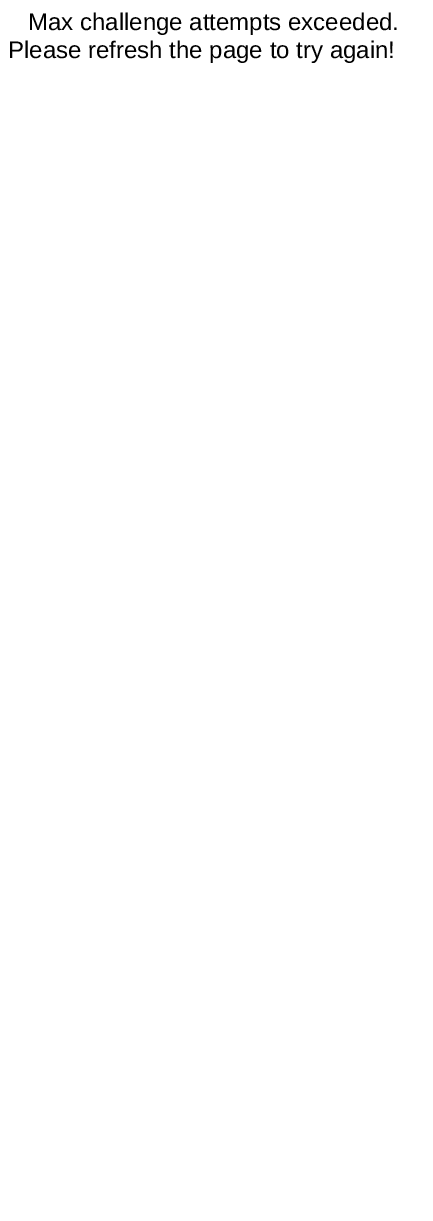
%!PS-Adobe-3.0
%%BoundingBox: 0 0 433 1221
%%LanguageLevel: 3
%%Pages: 1
%%EndComments
%%BeginProlog
%%EndProlog
%%BeginSetup
<< /PageSize [433 1221] >> setpagedevice
%%EndSetup
%%Page: 1 1
0 1221 translate 1 -1 scale
4 setmiterlimit
1 setgray
0 0 433 1221 rectfill
/LiberationSans-Regular [24 0 0 -24 0 0] selectfont
0 setgray
28 30 moveto (Max challenge attempts exceeded.) show
8 58 moveto (Please refresh the page to try again!) show
showpage
%%EOF
